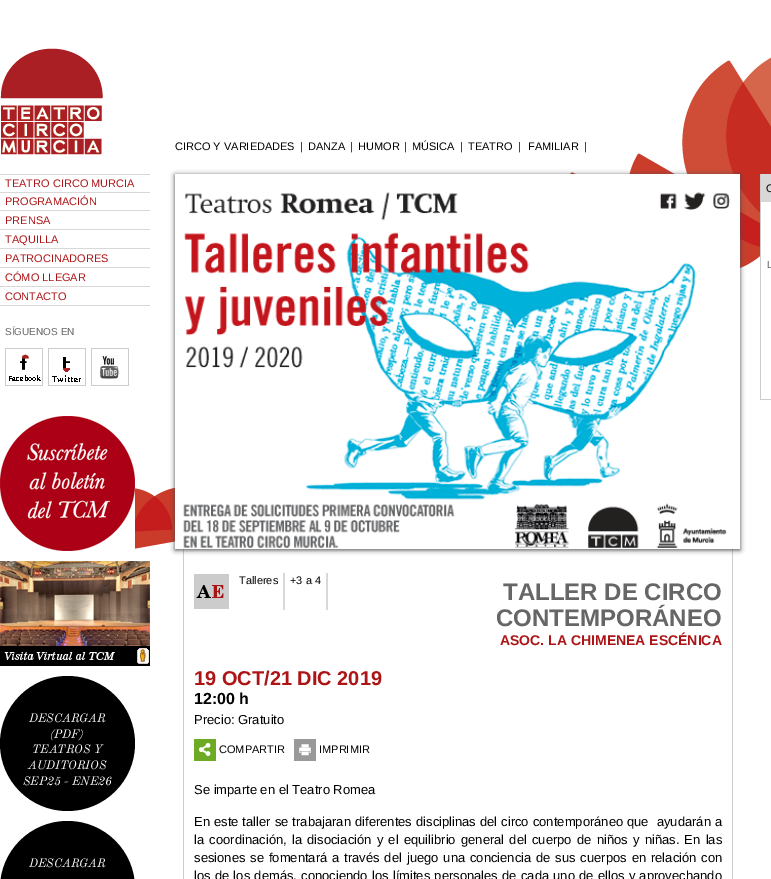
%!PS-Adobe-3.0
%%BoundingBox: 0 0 771 879
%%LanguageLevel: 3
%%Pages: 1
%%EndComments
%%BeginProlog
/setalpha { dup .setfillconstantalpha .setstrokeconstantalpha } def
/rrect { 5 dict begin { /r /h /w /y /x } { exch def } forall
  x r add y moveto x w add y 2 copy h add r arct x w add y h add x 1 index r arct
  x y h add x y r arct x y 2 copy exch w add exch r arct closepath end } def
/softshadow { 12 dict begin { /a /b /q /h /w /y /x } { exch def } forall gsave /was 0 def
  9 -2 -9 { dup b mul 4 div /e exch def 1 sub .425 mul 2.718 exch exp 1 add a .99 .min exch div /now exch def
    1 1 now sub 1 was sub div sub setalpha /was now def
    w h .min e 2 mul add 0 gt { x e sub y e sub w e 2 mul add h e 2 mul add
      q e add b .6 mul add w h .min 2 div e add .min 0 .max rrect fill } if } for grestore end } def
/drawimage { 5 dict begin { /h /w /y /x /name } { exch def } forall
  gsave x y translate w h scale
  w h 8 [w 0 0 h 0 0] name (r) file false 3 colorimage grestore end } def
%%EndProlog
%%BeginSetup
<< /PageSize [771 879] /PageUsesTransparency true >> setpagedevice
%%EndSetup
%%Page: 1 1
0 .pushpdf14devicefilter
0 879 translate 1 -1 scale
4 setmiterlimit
1 setgray
0 0 771 879 rectfill
(images/1.raw) 135 57 636 492 drawimage
(images/2.raw) 0 48 103 107 drawimage
0.847 setgray
0 174 150 1 rectfill
0 192 150 1 rectfill
0 210 150 1 rectfill
0 229 150 1 rectfill
0 248 150 1 rectfill
0 267 150 1 rectfill
0 286 150 1 rectfill
0 305 150 1 rectfill
(images/3.raw) 5 348 38 38 drawimage
(images/4.raw) 48 348 38 38 drawimage
(images/5.raw) 91 348 38 38 drawimage
(images/6.raw) 0 416 135 135 drawimage
(images/7.raw) 0 561 150 105 drawimage
0 setgray
newpath 67.5 743.5 67.5 0 360 arc closepath fill
0 821 135 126 67.5 rrect fill
0.8 setgray
760 399 11 1 rectfill
760 174 1 226 rectfill
0.847 setgray
761 174 10 28 rectfill
1 setgray
761 202 10 54 rectfill
0.8 setgray
732 549 1 330 rectfill
183 549 1 330 rectfill
0.29 setgray
175 175 565 375 0 2.5 1 softshadow
(images/8.raw) 175 174 565 375 drawimage
(images/9.raw) 194 574 35 35 drawimage
0.847 setgray
283 573 2 37 rectfill
326 573 2 37 rectfill
(images/10.raw) 194 739 22 22 drawimage
(images/11.raw) 294 739 22 22 drawimage
/LiberationSans-Regular [11 0 0 -11 0 0] selectfont
0 setgray
175 150 moveto (CIRCO Y VARIEDADES) show
300 150 moveto (|) show
308 150 moveto (DANZA) show
350 150 moveto (|) show
358 150 moveto (HUMOR) show
404 150 moveto (|) show
412 150 moveto (MÚSICA) show
460 150 moveto (|) show
468 150 moveto (TEATRO) show
518 150 moveto (|) show
528 150 moveto (FAMILIAR) show
584 150 moveto (|) show
0.675 0.078 0.086 setrgbcolor
5 187 moveto (TEATRO CIRCO MURCIA) show
5 205 moveto (PROGRAMACIÓN) show
5 224 moveto (PRENSA) show
5 243 moveto (TAQUILLA) show
5 262 moveto (PATROCINADORES) show
5 281 moveto (CÓMO LLEGAR) show
5 300 moveto (CONTACTO) show
/LiberationSans-Regular [10 0 0 -10 0 0] selectfont
0.4 setgray
5 335 moveto (SÍGUENOS EN) show
/OldStandardTT-Italic [12 0 0 -12 0 0] selectfont
1 setgray
29 722 moveto (DESCARGAR) show
50 738 moveto (\(PDF\)) show
32 753 moveto (TEATROS Y) show
28 769 moveto (AUDITORIOS) show
23 785 moveto (SEP25 - ENE26) show
29 867 moveto (DESCARGAR) show
/LiberationSans-Regular [11 0 0 -11 0 0] selectfont
0 setgray
766 192 moveto (C) show
/LiberationSans-Regular [10 0 0 -10 0 0] selectfont
0.4 setgray
767 268 moveto (L) show
/LiberationSans-Regular [11 0 0 -11 0 0] selectfont
0 setgray
239 584 moveto (Talleres) show
290 584 moveto (+3 a 4) show
/LiberationSans-Bold [24 0 0 -24 0 0] selectfont
0.4 setgray
503 600 moveto (TALLER DE CIRCO) show
496 626 moveto (CONTEMPORÁNEO) show
/LiberationSans-Bold [14 0 0 -14 0 0] selectfont
0.675 0.078 0.086 setrgbcolor
500 645 moveto (ASOC. LA CHIMENEA ESCÉNICA) show
/LiberationSans-Bold [20 0 0 -20 0 0] selectfont
194 685 moveto (19 OCT/21 DIC 2019) show
/LiberationSans-Bold [16 0 0 -16 0 0] selectfont
0 setgray
194 704 moveto (12:00 h) show
/LiberationSans-Regular [13 0 0 -13 0 0] selectfont
194 724 moveto (Precio: Gratuito) show
/LiberationSans-Regular [11 0 0 -11 0 0] selectfont
219 753 moveto (COMPARTIR) show
319 753 moveto (IMPRIMIR) show
/LiberationSans-Regular [13 0 0 -13 0 0] selectfont
194 794 moveto (Se imparte en el Teatro Romea) show
194 826 moveto 0.4 0 32 (En este taller se trabajaran diferentes disciplinas del circo contemporáneo que  ayudarán a) widthshow
194 844 moveto 1.6 0 32 (la coordinación, la disociación y el equilibrio general del cuerpo de niños y niñas. En las) widthshow
194 862 moveto 1.25 0 32 (sesiones se fomentará a través del juego una conciencia de sus cuerpos en relación con) widthshow
194 880 moveto 0.6 0 32 (los de los demás, conociendo los límites personales de cada uno de ellos y aprovechando) widthshow
.poppdf14devicefilter showpage
%%EOF
